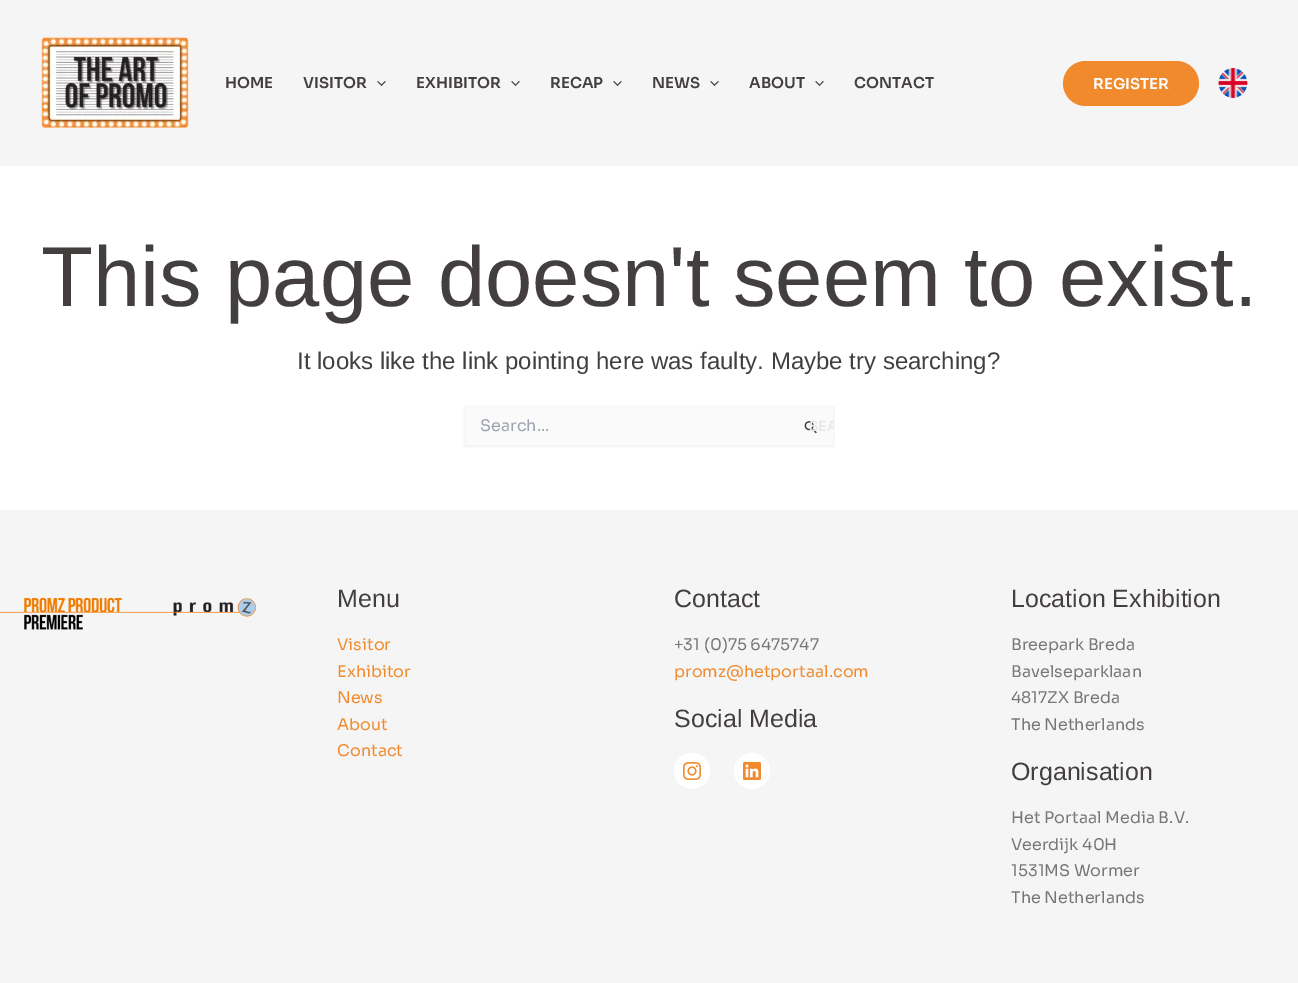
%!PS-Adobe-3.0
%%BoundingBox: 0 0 1298 983
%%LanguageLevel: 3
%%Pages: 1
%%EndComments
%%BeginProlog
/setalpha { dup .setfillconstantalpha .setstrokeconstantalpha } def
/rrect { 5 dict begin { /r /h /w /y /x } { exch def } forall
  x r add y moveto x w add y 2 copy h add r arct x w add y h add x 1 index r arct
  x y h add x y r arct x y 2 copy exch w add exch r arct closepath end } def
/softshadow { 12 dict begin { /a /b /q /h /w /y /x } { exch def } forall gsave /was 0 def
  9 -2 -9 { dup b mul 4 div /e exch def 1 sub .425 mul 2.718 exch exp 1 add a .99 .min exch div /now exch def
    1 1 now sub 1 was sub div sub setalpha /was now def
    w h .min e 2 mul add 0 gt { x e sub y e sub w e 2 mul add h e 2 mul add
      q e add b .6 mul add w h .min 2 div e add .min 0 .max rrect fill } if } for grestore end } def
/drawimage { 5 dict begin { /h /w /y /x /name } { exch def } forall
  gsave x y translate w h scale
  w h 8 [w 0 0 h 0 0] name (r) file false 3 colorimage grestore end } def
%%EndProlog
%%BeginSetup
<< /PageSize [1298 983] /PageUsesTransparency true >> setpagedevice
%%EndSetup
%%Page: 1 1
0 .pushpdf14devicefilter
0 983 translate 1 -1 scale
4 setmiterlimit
1 setgray
0 0 1298 983 rectfill
0.961 setgray
0 0 1298 166 rectfill
(images/1.raw) 41 37 148 92 drawimage
(images/2.raw) 377 81 9 5 drawimage
(images/2.raw) 511 81 9 5 drawimage
(images/2.raw) 613 81 9 5 drawimage
(images/2.raw) 710 81 9 5 drawimage
(images/2.raw) 815 81 9 5 drawimage
0.941 0.541 0.173 setrgbcolor
1063 61 136 45 22.5 rrect fill
(images/3.raw) 1218 68 30 30 drawimage
0 setgray
464 407 370 40 2 1 0.05 softshadow
0.98 setgray
464.5 406.5 369 39 1.5 rrect gsave fill grestore
0.961 setgray
stroke
(images/4.raw) 804 421 13 13 drawimage
0 510 1298 473 rectfill
(images/5.raw) 0 597 257 33 drawimage
1 setgray
newpath 692 771 18 0 360 arc closepath fill
(images/6.raw) 683 762 18 18 drawimage
newpath 752 771 18 0 360 arc closepath fill
(images/7.raw) 743 762 18 18 drawimage
/Sora-SemiBold [15 0 0 -15 0 0] selectfont
0.263 0.247 0.247 setrgbcolor
225 88 moveto (HOME) show
303 88 moveto (VISITOR) show
416 88 moveto (EXHIBITOR) show
550 88 moveto (RECAP) show
652 88 moveto (NEWS) show
749 88 moveto (ABOUT) show
854 88 moveto (CONTACT) show
1 setgray
1093 89 moveto (REGISTER) show
/LiberationSans-Regular [85 0 0 -85 0 0] selectfont
0.263 0.247 0.247 setrgbcolor
41 306 moveto (This page doesn't seem to exist.) show
/LiberationSans-Regular [24 0 0 -24 0 0] selectfont
297 369 moveto (It looks like the link pointing here was faulty. Maybe try searching?) show
/Sora-Regular [16 0 0 -16 0 0] selectfont
0.612 0.639 0.686 setrgbcolor
480 431 moveto (Search...) show
gsave
789 406 45 40 2 rrect clip newpath
/Sora-SemiBold [14 0 0 -14 0 0] selectfont
0.906 setgray
809 431 moveto (SEA) show
grestore
/LiberationSans-Regular [25 0 0 -25 0 0] selectfont
0.263 0.247 0.247 setrgbcolor
337 607 moveto (Menu) show
/Sora-Regular [16 0 0 -16 0 0] selectfont
0.941 0.541 0.173 setrgbcolor
337 650 moveto (Visitor) show
337 677 moveto (Exhibitor) show
337 703 moveto (News) show
337 730 moveto (About) show
337 756 moveto (Contact) show
/LiberationSans-Regular [25 0 0 -25 0 0] selectfont
0.263 0.247 0.247 setrgbcolor
674 607 moveto (Contact) show
/Sora-Regular [16 0 0 -16 0 0] selectfont
0.463 setgray
674 650 moveto (+31 \(0\)75 6475747) show
0.941 0.541 0.173 setrgbcolor
674 677 moveto (promz@hetportaal.com) show
/LiberationSans-Regular [25 0 0 -25 0 0] selectfont
0.263 0.247 0.247 setrgbcolor
674 727 moveto (Social Media) show
1011 607 moveto (Location Exhibition) show
/Sora-Regular [16 0 0 -16 0 0] selectfont
0.463 setgray
1011 650 moveto (Breepark Breda) show
1011 677 moveto (Bavelseparklaan) show
1011 703 moveto (4817ZX Breda) show
1011 730 moveto (The Netherlands) show
/LiberationSans-Regular [25 0 0 -25 0 0] selectfont
0.263 0.247 0.247 setrgbcolor
1011 780 moveto (Organisation) show
/Sora-Regular [16 0 0 -16 0 0] selectfont
0.463 setgray
1011 823 moveto (Het Portaal Media B.V.) show
1011 850 moveto (Veerdijk 40H) show
1011 876 moveto (1531MS Wormer) show
1011 903 moveto (The Netherlands) show
.poppdf14devicefilter showpage
%%EOF
